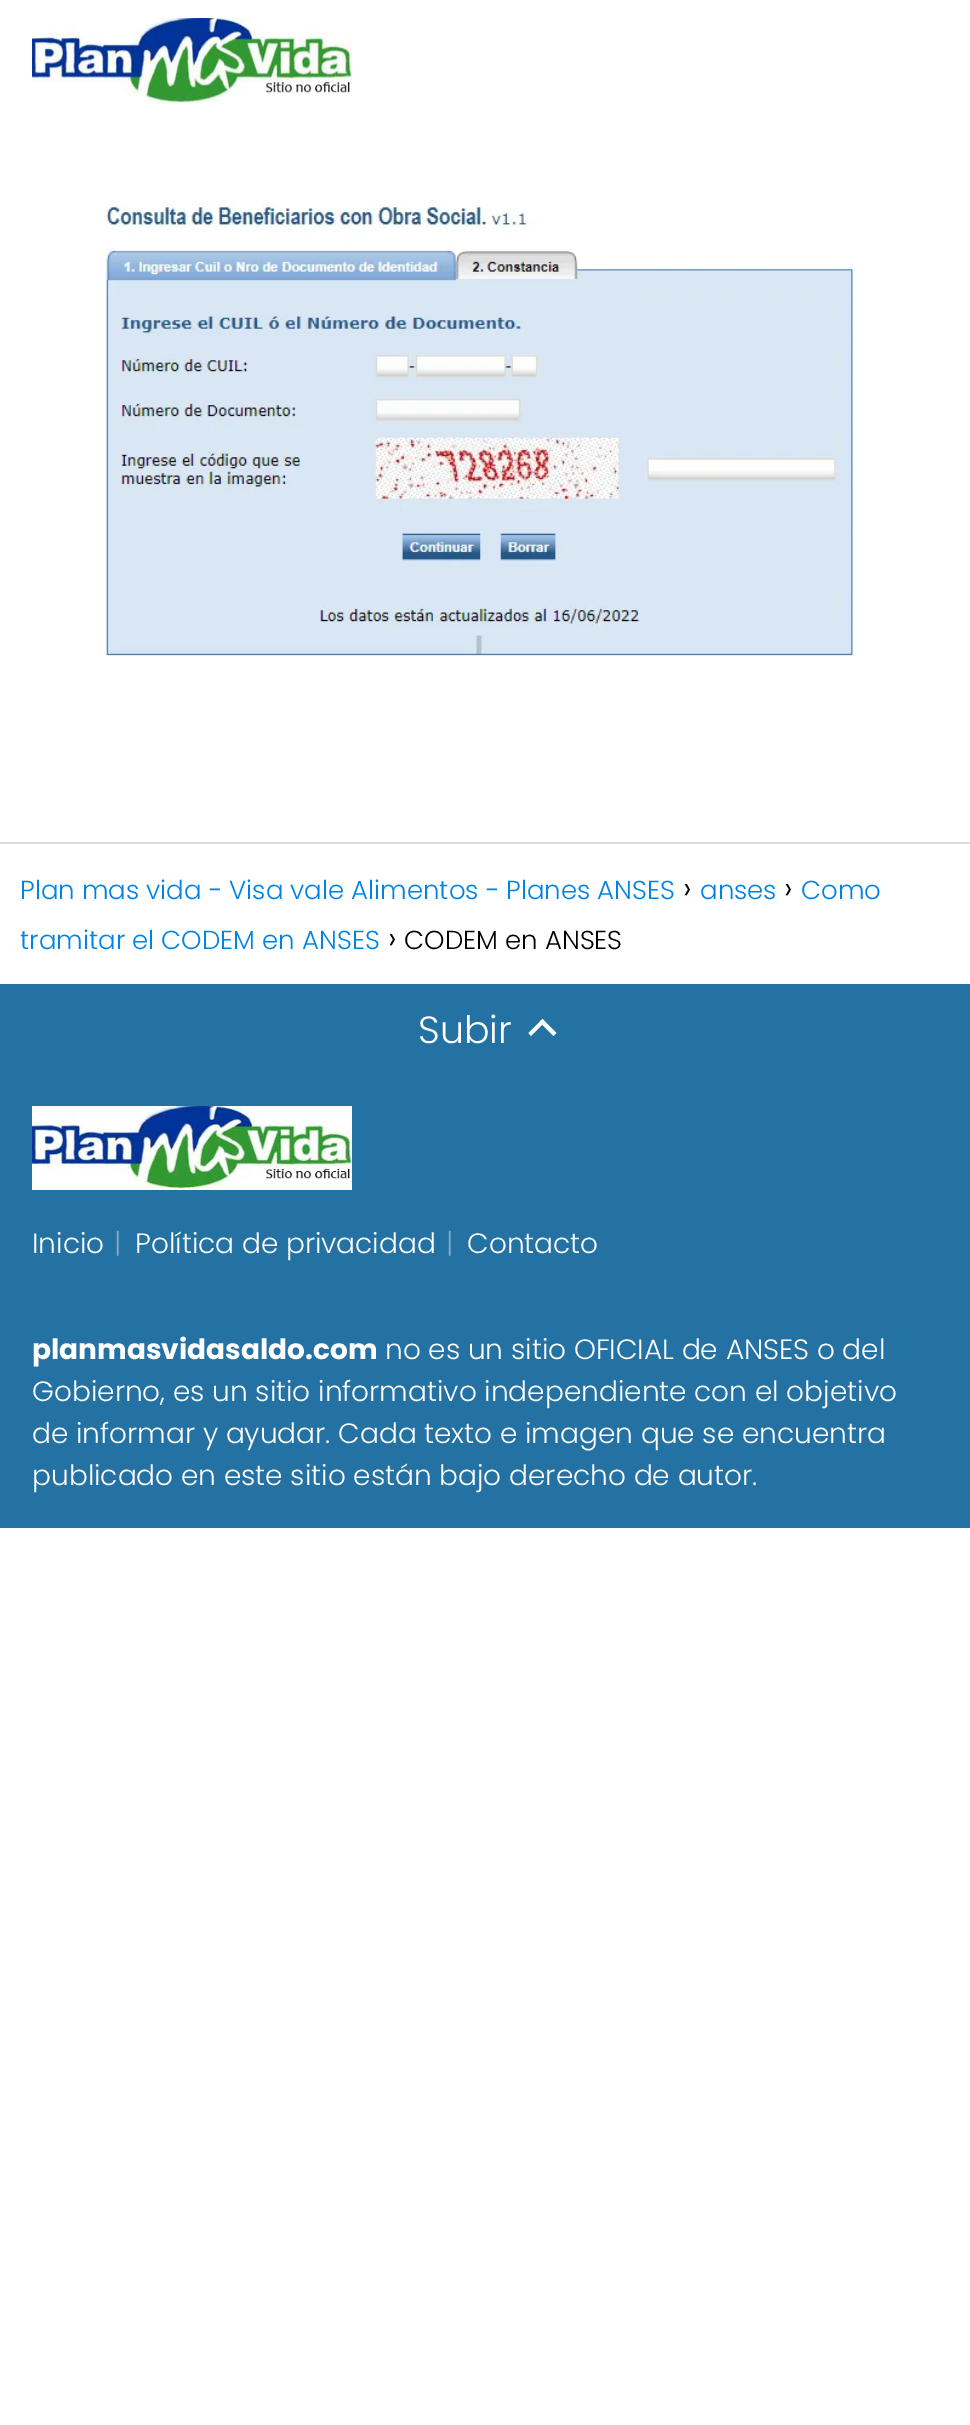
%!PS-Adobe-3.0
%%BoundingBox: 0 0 970 2425
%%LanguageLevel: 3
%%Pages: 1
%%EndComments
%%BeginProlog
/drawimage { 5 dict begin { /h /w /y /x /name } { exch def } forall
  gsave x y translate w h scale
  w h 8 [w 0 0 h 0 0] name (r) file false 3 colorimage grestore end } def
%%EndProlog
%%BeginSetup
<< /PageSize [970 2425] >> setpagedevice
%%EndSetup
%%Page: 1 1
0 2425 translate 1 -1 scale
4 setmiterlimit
1 setgray
0 0 970 2425 rectfill
(images/1.raw) 32 18 320 86 drawimage
(images/2.raw) 105 199 750 457 drawimage
0.867 setgray
0 842 970 2 rectfill
0.141 0.443 0.639 setrgbcolor
0 984 970 544 rectfill
1 setgray
newpath 531 1036 moveto 528.5 1033 lineto 542.5 1019 lineto 545 1022 lineto closepath fill
newpath 553.5 1036 moveto 539.5 1022 lineto 542.5 1019 lineto 556.5 1033 lineto closepath fill
(images/3.raw) 32 1106 320 84 drawimage
/Poppins-Light [26 0 0 -26 0 0] selectfont
0.004 0.514 0.894 setrgbcolor
20 899 moveto (Plan mas vida - Visa vale Alimentos - Planes ANSES) show
/Poppins-Light [32 0 0 -32 0 0] selectfont
0 setgray
683 899 moveto (›) show
/Poppins-Light [26 0 0 -26 0 0] selectfont
0.004 0.514 0.894 setrgbcolor
700 899 moveto (anses) show
/Poppins-Light [32 0 0 -32 0 0] selectfont
0 setgray
784 899 moveto (›) show
/Poppins-Light [26 0 0 -26 0 0] selectfont
0.004 0.514 0.894 setrgbcolor
801 899 moveto (Como) show
20 949 moveto (tramitar el CODEM en ANSES) show
/Poppins-Light [32 0 0 -32 0 0] selectfont
0 setgray
388 949 moveto (›) show
/Poppins-Light [26 0 0 -26 0 0] selectfont
404 949 moveto (CODEM en ANSES) show
/Poppins-Light [38 0 0 -38 0 0] selectfont
1 setgray
418 1043 moveto (Subir) show
/Poppins-Light [28 0 0 -28 0 0] selectfont
32 1253 moveto (Inicio) show
0.486 0.667 0.784 setrgbcolor
114 1253 moveto (|) show
1 setgray
135 1253 moveto (Política de privacidad) show
0.486 0.667 0.784 setrgbcolor
446 1253 moveto (|) show
1 setgray
467 1253 moveto (Contacto) show
/Poppins-Bold [28 0 0 -28 0 0] selectfont
32 1359 moveto (planmasvidasaldo.com) show
/Poppins-Light [28 0 0 -28 0 0] selectfont
385 1359 moveto (no es un sitio OFICIAL de ANSES o del) show
32 1401 moveto (Gobierno, es un sitio informativo independiente con el objetivo) show
32 1443 moveto (de informar y ayudar. Cada texto e imagen que se encuentra) show
32 1485 moveto (publicado en este sitio están bajo derecho de autor.) show
showpage
%%EOF
